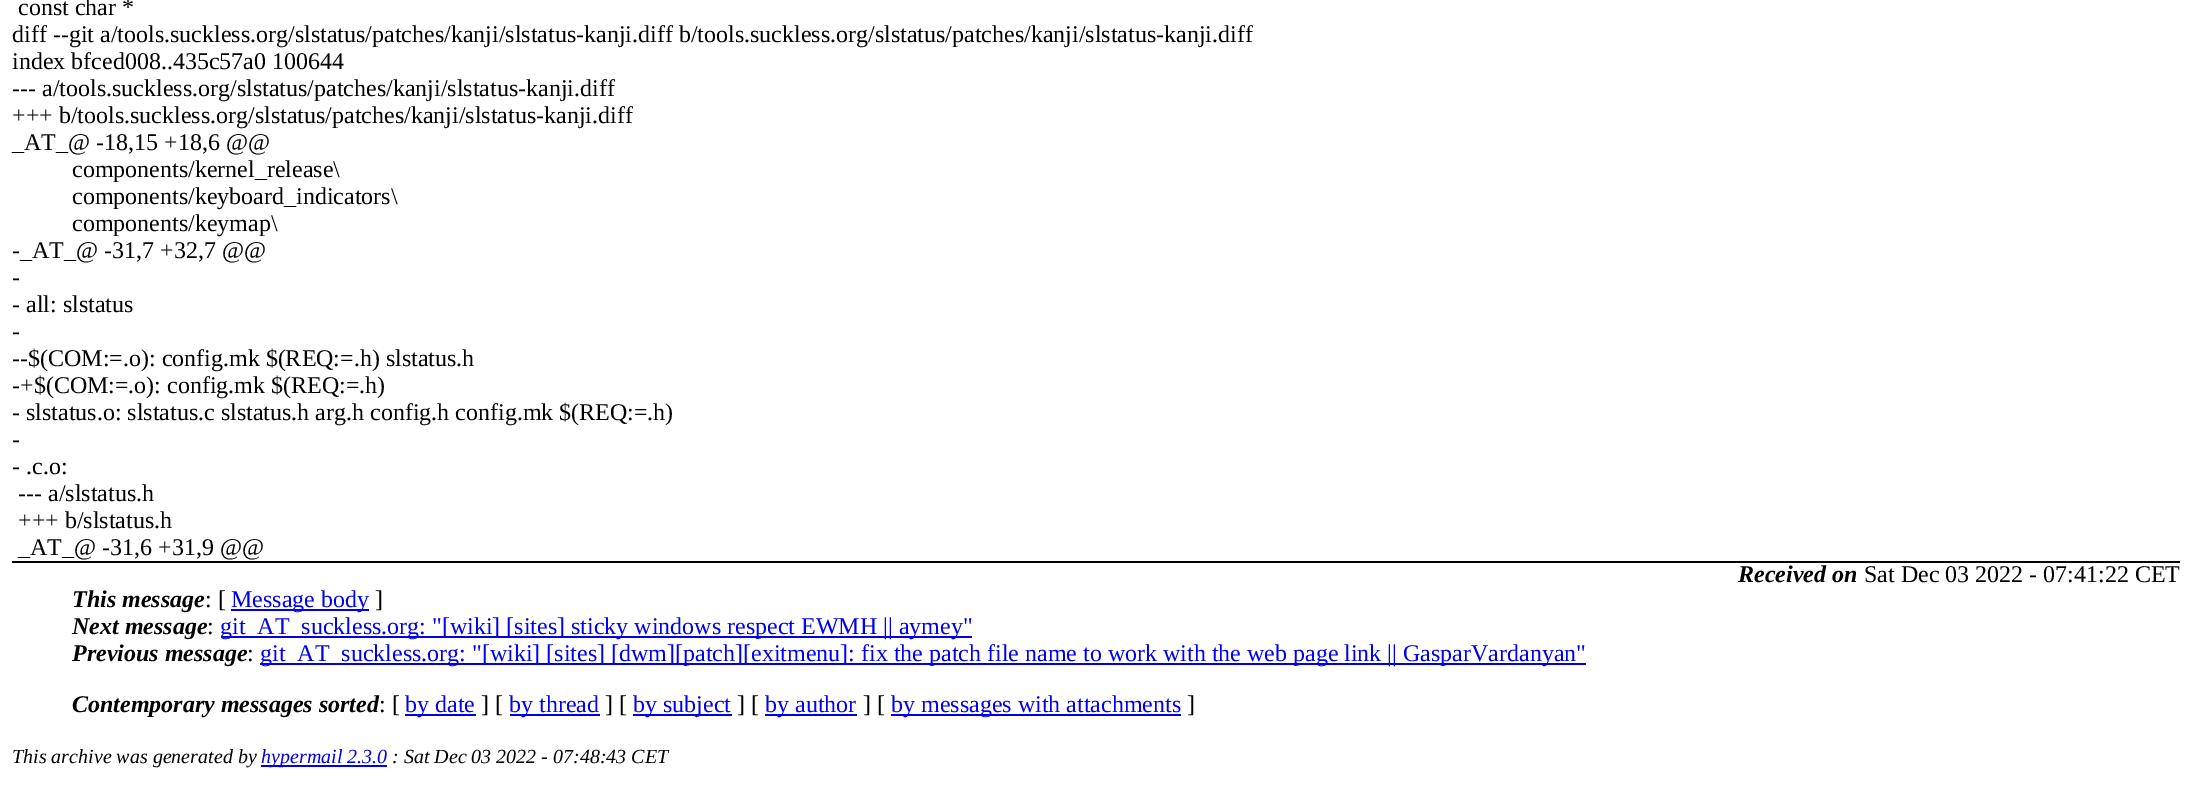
%!PS-Adobe-3.0
%%BoundingBox: 0 0 2191 793
%%LanguageLevel: 3
%%Pages: 1
%%EndComments
%%BeginProlog
%%EndProlog
%%BeginSetup
<< /PageSize [2191 793] >> setpagedevice
%%EndSetup
%%Page: 1 1
0 793 translate 1 -1 scale
4 setmiterlimit
1 setgray
0 0 2191 793 rectfill
0 setgray
12 561 2168 2 rectfill
0 0 0.933 setrgbcolor
231 609 138 2 rectfill
221 636 751 2 rectfill
260 663 1326 2 rectfill
405 714 71 2 rectfill
510 714 90 2 rectfill
633 714 99 2 rectfill
765 714 92 2 rectfill
891 714 290 2 rectfill
261 765 126 2 rectfill
/LiberationSerif-Regular [24 0 0 -24 0 0] selectfont
0 setgray
18 15 moveto (const char *) show
12 42 moveto (diff --git a/tools.suckless.org/slstatus/patches/kanji/slstatus-kanji.diff b/tools.suckless.org/slstatus/patches/kanji/slstatus-kanji.diff) show
12 69 moveto (index bfced008..435c57a0 100644) show
12 96 moveto (--- a/tools.suckless.org/slstatus/patches/kanji/slstatus-kanji.diff) show
12 123 moveto (+++ b/tools.suckless.org/slstatus/patches/kanji/slstatus-kanji.diff) show
12 150 moveto (_AT_@ -18,15 +18,6 @@) show
72 177 moveto (components/kernel_release\\) show
72 204 moveto (components/keyboard_indicators\\) show
72 231 moveto (components/keymap\\) show
12 258 moveto (-_AT_@ -31,7 +32,7 @@) show
12 285 moveto (-) show
12 312 moveto (- all: slstatus) show
12 339 moveto (-) show
12 366 moveto (--$\(COM:=.o\): config.mk $\(REQ:=.h\) slstatus.h) show
12 393 moveto (-+$\(COM:=.o\): config.mk $\(REQ:=.h\)) show
12 420 moveto (- slstatus.o: slstatus.c slstatus.h arg.h config.h config.mk $\(REQ:=.h\)) show
12 447 moveto (-) show
12 474 moveto (- .c.o:) show
18 501 moveto (--- a/slstatus.h) show
18 528 moveto (+++ b/slstatus.h) show
18 555 moveto (_AT_@ -31,6 +31,9 @@) show
/LiberationSerif-BoldItalic [24 0 0 -24 0 0] selectfont
1738 582 moveto (Received on) show
/LiberationSerif-Regular [24 0 0 -24 0 0] selectfont
1864 582 moveto (Sat Dec 03 2022 - 07:41:22 CET) show
/LiberationSerif-BoldItalic [24 0 0 -24 0 0] selectfont
72 607 moveto (This message) show
/LiberationSerif-Regular [24 0 0 -24 0 0] selectfont
205 607 moveto (: [) show
0 0 0.933 setrgbcolor
231 607 moveto (Message body) show
0 setgray
375 607 moveto (]) show
/LiberationSerif-BoldItalic [24 0 0 -24 0 0] selectfont
72 634 moveto (Next message) show
/LiberationSerif-Regular [24 0 0 -24 0 0] selectfont
207 634 moveto (:) show
0 0 0.933 setrgbcolor
220 634 moveto (git_AT_suckless.org: "[wiki] [sites] sticky windows respect EWMH || aymey") show
/LiberationSerif-BoldItalic [24 0 0 -24 0 0] selectfont
0 setgray
72 661 moveto (Previous message) show
/LiberationSerif-Regular [24 0 0 -24 0 0] selectfont
247 661 moveto (:) show
0 0 0.933 setrgbcolor
260 661 moveto (git_AT_suckless.org: "[wiki] [sites] [dwm][patch][exitmenu]: fix the patch file name to work with the web page link || GasparVardanyan") show
/LiberationSerif-BoldItalic [24 0 0 -24 0 0] selectfont
0 setgray
72 712 moveto (Contemporary messages sorted) show
/LiberationSerif-Regular [24 0 0 -24 0 0] selectfont
379 712 moveto (: [) show
0 0 0.933 setrgbcolor
405 712 moveto (by date) show
0 setgray
481 712 moveto (] [) show
0 0 0.933 setrgbcolor
509 712 moveto (by thread) show
0 setgray
605 712 moveto (] [) show
0 0 0.933 setrgbcolor
633 712 moveto (by subject) show
0 setgray
737 712 moveto (] [) show
0 0 0.933 setrgbcolor
765 712 moveto (by author) show
0 setgray
863 712 moveto (] [) show
0 0 0.933 setrgbcolor
891 712 moveto (by messages with attachments) show
0 setgray
1187 712 moveto (]) show
/LiberationSerif-Italic [20 0 0 -20 0 0] selectfont
12 763 moveto (This archive was generated by) show
0 0 0.933 setrgbcolor
261 763 moveto (hypermail 2.3.0) show
0 setgray
392 763 moveto (: Sat Dec 03 2022 - 07:48:43 CET) show
showpage
%%EOF
